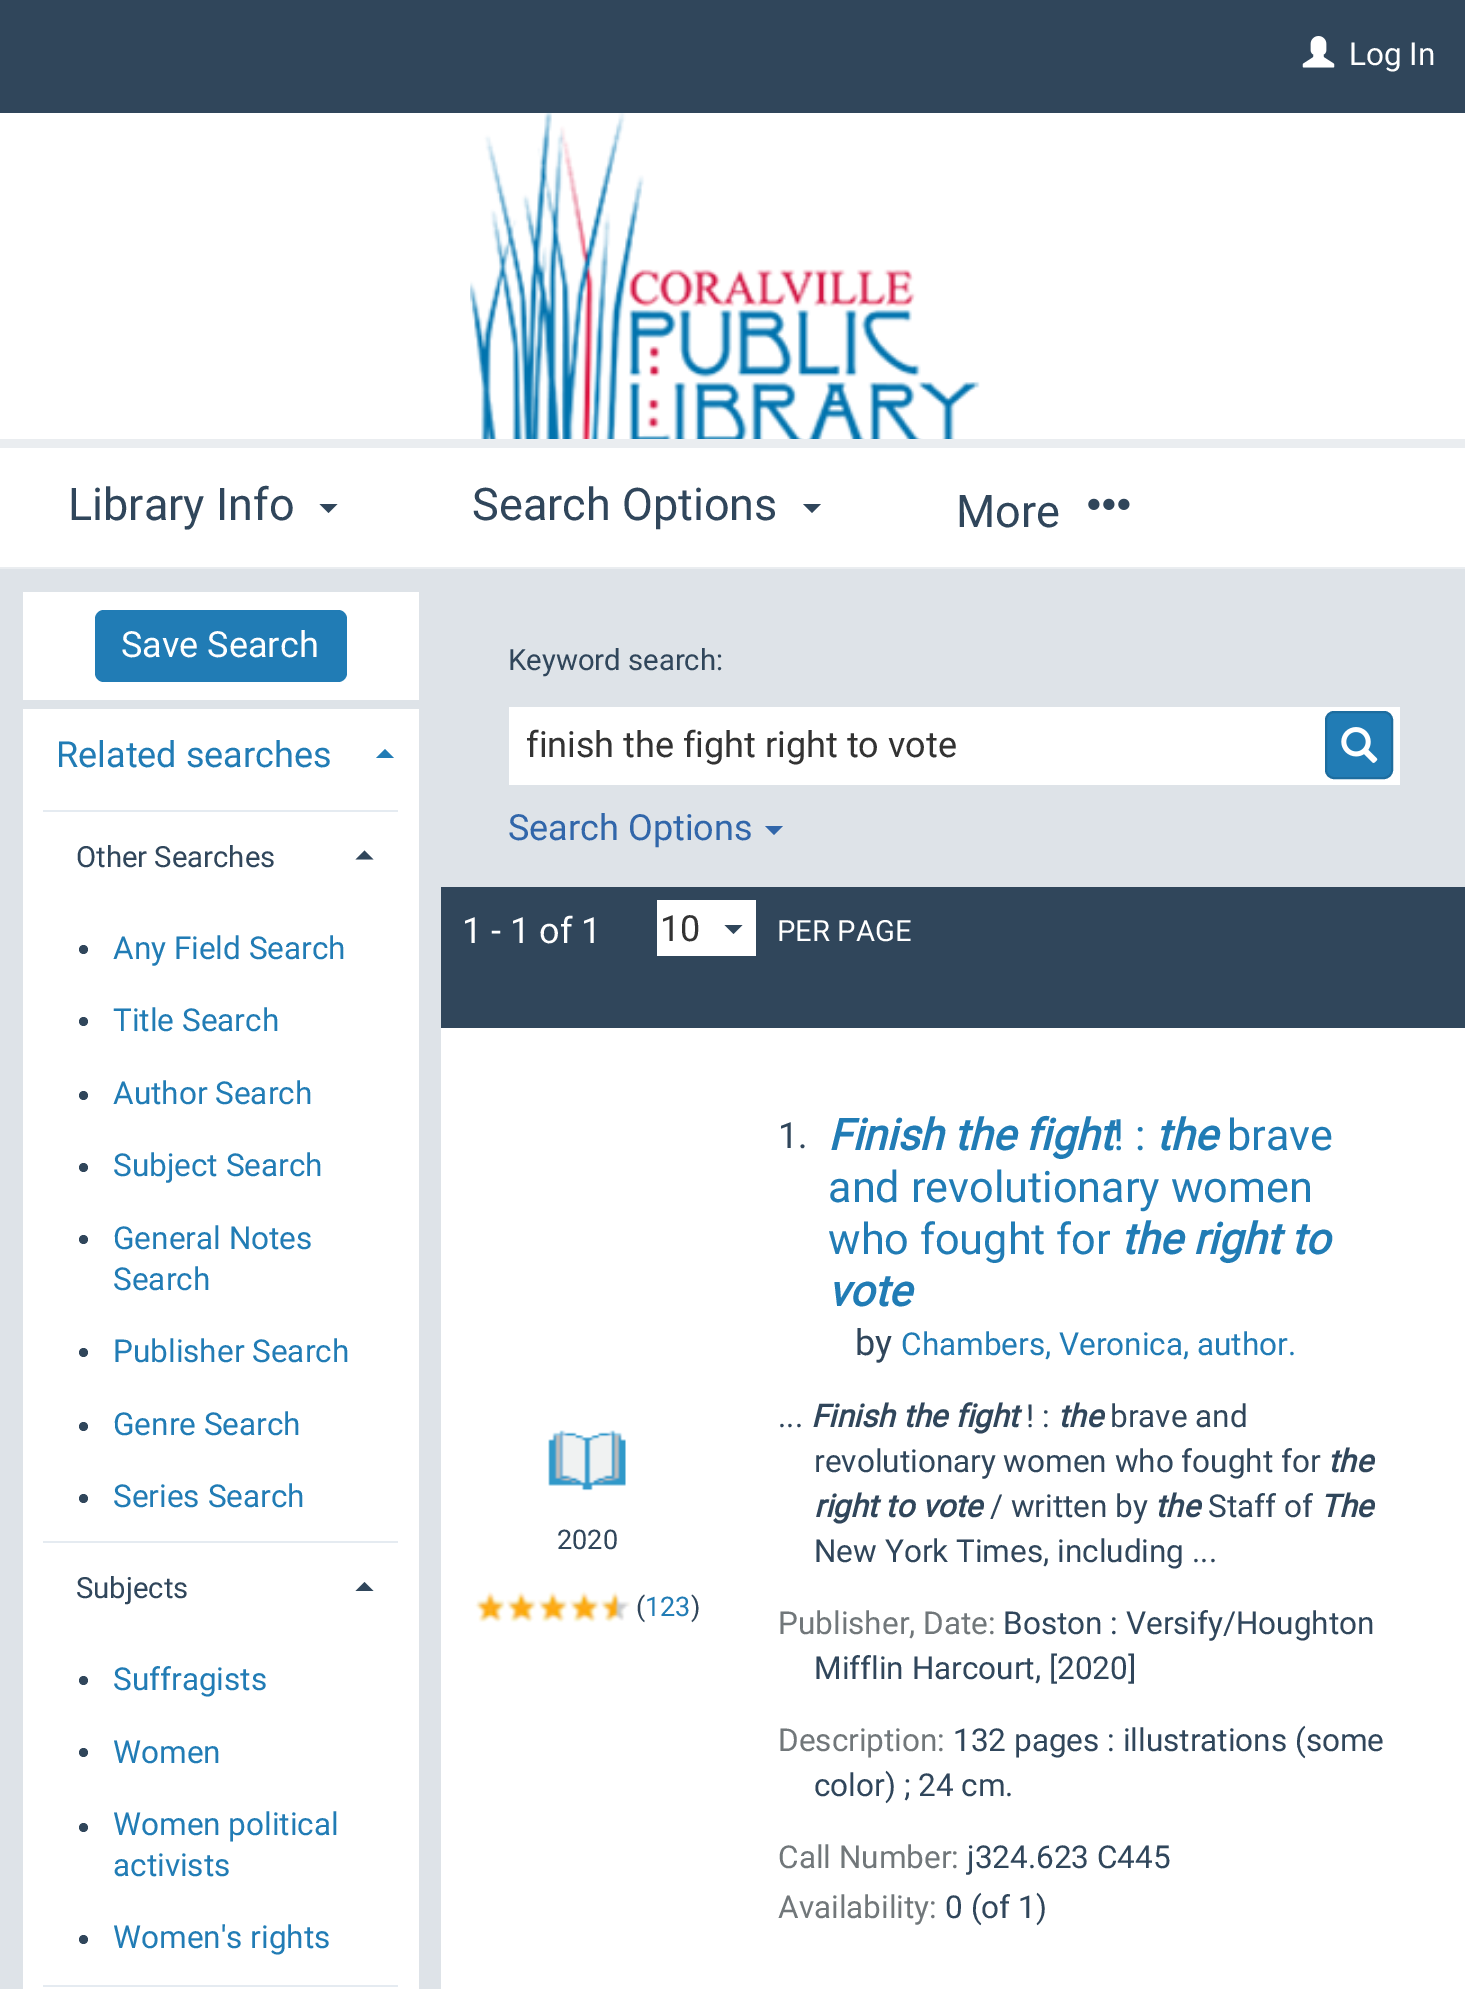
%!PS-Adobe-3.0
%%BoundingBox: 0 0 1465 1989
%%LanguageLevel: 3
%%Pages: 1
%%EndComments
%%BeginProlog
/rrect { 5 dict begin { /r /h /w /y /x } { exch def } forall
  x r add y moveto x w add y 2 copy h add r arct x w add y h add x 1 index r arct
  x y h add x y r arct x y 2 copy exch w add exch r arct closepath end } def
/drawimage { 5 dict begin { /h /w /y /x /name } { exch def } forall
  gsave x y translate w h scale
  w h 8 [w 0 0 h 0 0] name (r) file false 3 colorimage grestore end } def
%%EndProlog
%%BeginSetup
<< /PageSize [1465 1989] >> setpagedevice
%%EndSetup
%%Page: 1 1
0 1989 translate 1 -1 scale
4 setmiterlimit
0.188 0.275 0.357 setrgbcolor
0 0 1465 1989 rectfill
0.918 0.929 0.941 setrgbcolor
0 567 1465 2 rectfill
(images/1.raw) 1302 36 33 32 drawimage
1 setgray
0 113 1465 326 rectfill
(images/2.raw) 470 112 510 327 drawimage
0 448 1465 119 rectfill
0.918 0.929 0.941 setrgbcolor
0 439 1465 9 rectfill
0.188 0.275 0.357 setrgbcolor
newpath 319.5 504 moveto 337.5 504 lineto 328.5 513 lineto closepath fill
newpath 803 504 moveto 821 504 lineto 812 513 lineto closepath fill
(images/3.raw) 1088 498 42 12 drawimage
0.871 0.89 0.91 setrgbcolor
0 569 441 1420 rectfill
1 setgray
23 592 396 108 rectfill
0.129 0.486 0.71 setrgbcolor
95 610 252 72 9 rrect fill
1 setgray
23 709 396 1280 rectfill
0.129 0.486 0.71 setrgbcolor
newpath 394 758 moveto 376 758 lineto 385 749 lineto closepath fill
0.898 0.922 0.945 setrgbcolor
43 810 355 2 rectfill
0.188 0.275 0.357 setrgbcolor
newpath 373.5 859.5 moveto 355.5 859.5 lineto 364.5 850.5 lineto closepath fill
newpath 83.5 949.5 4.5 0 360 arc closepath fill
newpath 83.5 1021.5 4.5 0 360 arc closepath fill
newpath 83.5 1095.5 4.5 0 360 arc closepath fill
newpath 83.5 1167.5 4.5 0 360 arc closepath fill
newpath 83.5 1239.5 4.5 0 360 arc closepath fill
newpath 83.5 1352.5 4.5 0 360 arc closepath fill
newpath 83.5 1426.5 4.5 0 360 arc closepath fill
newpath 83.5 1498.5 4.5 0 360 arc closepath fill
0.898 0.922 0.945 setrgbcolor
43 1541 355 2 rectfill
0.188 0.275 0.357 setrgbcolor
newpath 373.5 1591 moveto 355.5 1591 lineto 364.5 1582 lineto closepath fill
newpath 83.5 1680.5 4.5 0 360 arc closepath fill
newpath 83.5 1752.5 4.5 0 360 arc closepath fill
newpath 83.5 1827.5 4.5 0 360 arc closepath fill
newpath 83.5 1939.5 4.5 0 360 arc closepath fill
0.898 0.922 0.945 setrgbcolor
43 1985 355 2 rectfill
1 setgray
441 1028 1024 961 rectfill
0.871 0.89 0.91 setrgbcolor
441 569 1024 318 rectfill
1 setgray
509 707 891 78 rectfill
0.129 0.486 0.71 setrgbcolor
1326 712 66 66 8 rrect gsave fill grestore
0.114 0.427 0.624 setrgbcolor
2 setlinewidth
stroke
(images/4.raw) 1341 727 37 36 drawimage
0.192 0.4 0.667 setrgbcolor
newpath 765 826 moveto 783 826 lineto 774 835 lineto closepath fill
1 setgray
657 900 99 56 rectfill
0.188 0.275 0.357 setrgbcolor
newpath 724.5 925 moveto 742.5 925 lineto 733.5 934 lineto closepath fill
(images/5.raw) 548 1430 78 61 drawimage
(images/6.raw) 474 1590 157 33 drawimage
/Roboto-Regular [31.5 0 0 -31.5 0 0] selectfont
1 setgray
1349 65 moveto (Log In) show
/Roboto-Regular [45 0 0 -45 0 0] selectfont
0.188 0.275 0.357 setrgbcolor
68 520 moveto (Library Info) show
472 520 moveto (Search Options) show
956 527 moveto (More) show
/Roboto-Regular [36 0 0 -36 0 0] selectfont
1 setgray
121 657 moveto (Save Search) show
0.129 0.486 0.71 setrgbcolor
56 767 moveto (Related searches) show
/Roboto-Regular [29.25 0 0 -29.25 0 0] selectfont
0.188 0.275 0.357 setrgbcolor
76 867 moveto (Other Searches) show
/Roboto-Regular [31.5 0 0 -31.5 0 0] selectfont
0.129 0.486 0.71 setrgbcolor
113 959 moveto (Any Field Search) show
113 1031 moveto (Title Search) show
113 1104 moveto (Author Search) show
113 1176 moveto (Subject Search) show
113 1249 moveto (General Notes) show
113 1290 moveto (Search) show
113 1362 moveto (Publisher Search) show
113 1435 moveto (Genre Search) show
113 1507 moveto (Series Search) show
/Roboto-Regular [29.25 0 0 -29.25 0 0] selectfont
0.188 0.275 0.357 setrgbcolor
76 1598 moveto (Subjects) show
/Roboto-Regular [31.5 0 0 -31.5 0 0] selectfont
0.129 0.486 0.71 setrgbcolor
113 1690 moveto (Suffragists) show
113 1763 moveto (Women) show
113 1835 moveto (Women political) show
113 1876 moveto (activists) show
113 1948 moveto (Women's rights) show
/Roboto-Regular [29.25 0 0 -29.25 0 0] selectfont
0.188 0.275 0.357 setrgbcolor
508 670 moveto (Keyword search:) show
gsave
527 722 731 45 rectclip
/Roboto-Regular [36 0 0 -36 0 0] selectfont
0.2 setgray
526 757 moveto (finish the fight right to vote) show
grestore
/Roboto-Regular [36 0 0 -36 0 0] selectfont
0.192 0.4 0.667 setrgbcolor
508 840 moveto (Search Options) show
1 setgray
462 943 moveto (1 - 1 of 1) show
0.2 setgray
660 941 moveto (10) show
/Roboto-Regular [29.25 0 0 -29.25 0 0] selectfont
1 setgray
777 941 moveto (PER PAGE) show
/Roboto-Regular [27 0 0 -27 0 0] selectfont
0.188 0.275 0.357 setrgbcolor
557 1549 moveto (2020) show
636 1616 moveto (\() show
0.129 0.486 0.71 setrgbcolor
645 1616 moveto (123) show
0.188 0.275 0.357 setrgbcolor
691 1616 moveto (\)) show
/Roboto-Regular [36 0 0 -36 0 0] selectfont
778 1148 moveto (1.) show
/Roboto-BoldItalic [43.25 0 0 -43.25 0 0] selectfont
0.129 0.486 0.71 setrgbcolor
828 1150 moveto (Finish the fight) show
/Roboto-Regular [43.25 0 0 -43.25 0 0] selectfont
1113 1150 moveto (! :) show
/Roboto-BoldItalic [43.25 0 0 -43.25 0 0] selectfont
1156 1150 moveto (the) show
/Roboto-Regular [43.25 0 0 -43.25 0 0] selectfont
1227 1150 moveto (brave) show
828 1202 moveto (and revolutionary women) show
828 1254 moveto (who fought for) show
/Roboto-BoldItalic [43.25 0 0 -43.25 0 0] selectfont
1121 1254 moveto (the right to) show
828 1306 moveto (vote) show
/Roboto-Regular [36 0 0 -36 0 0] selectfont
0.188 0.275 0.357 setrgbcolor
855 1355 moveto (by) show
/Roboto-Regular [31.5 0 0 -31.5 0 0] selectfont
0.129 0.486 0.71 setrgbcolor
901 1355 moveto (Chambers, Veronica, author.) show
0.188 0.275 0.357 setrgbcolor
778 1427 moveto (...) show
/Roboto-BoldItalic [31.5 0 0 -31.5 0 0] selectfont
811 1427 moveto (Finish the fight) show
/Roboto-Regular [31.5 0 0 -31.5 0 0] selectfont
1026 1427 moveto (! :) show
/Roboto-BoldItalic [31.5 0 0 -31.5 0 0] selectfont
1058 1427 moveto (the) show
/Roboto-Regular [31.5 0 0 -31.5 0 0] selectfont
1110 1427 moveto (brave and) show
814 1472 moveto (revolutionary women who fought for) show
/Roboto-BoldItalic [31.5 0 0 -31.5 0 0] selectfont
1328 1472 moveto (the) show
814 1517 moveto (right to vote) show
/Roboto-Regular [31.5 0 0 -31.5 0 0] selectfont
990 1517 moveto (/ written by) show
/Roboto-BoldItalic [31.5 0 0 -31.5 0 0] selectfont
1155 1517 moveto (the) show
/Roboto-Regular [31.5 0 0 -31.5 0 0] selectfont
1208 1517 moveto (Staff of) show
/Roboto-BoldItalic [31.5 0 0 -31.5 0 0] selectfont
1320 1517 moveto (The) show
/Roboto-Regular [31.5 0 0 -31.5 0 0] selectfont
814 1562 moveto (New York Times, including ...) show
0.443 0.467 0.478 setrgbcolor
778 1634 moveto (Publisher, Date:) show
0.188 0.275 0.357 setrgbcolor
1003 1634 moveto (Boston : Versify/Houghton) show
814 1679 moveto (Mifflin Harcourt, [2020]) show
0.443 0.467 0.478 setrgbcolor
778 1751 moveto (Description:) show
0.188 0.275 0.357 setrgbcolor
953 1751 moveto (132 pages : illustrations \(some) show
814 1796 moveto (color\) ; 24 cm.) show
0.443 0.467 0.478 setrgbcolor
778 1868 moveto (Call Number:) show
0.188 0.275 0.357 setrgbcolor
967 1868 moveto (j324.623 C445) show
0.443 0.467 0.478 setrgbcolor
778 1918 moveto (Availability:) show
0.188 0.275 0.357 setrgbcolor
945 1918 moveto (0 \(of 1\)) show
showpage
%%EOF
